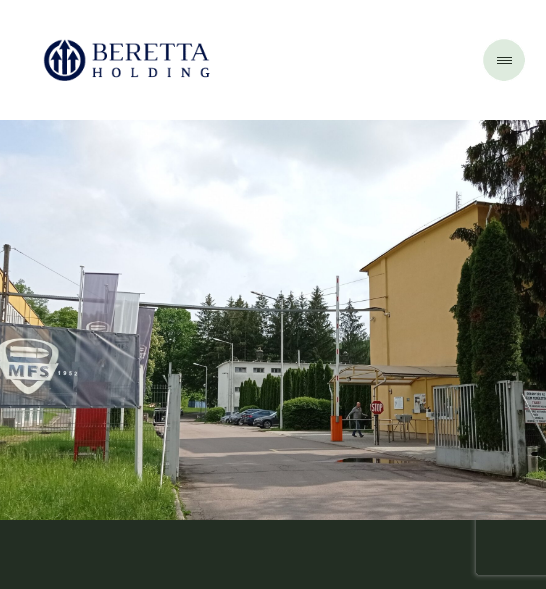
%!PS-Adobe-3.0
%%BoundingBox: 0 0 546 589
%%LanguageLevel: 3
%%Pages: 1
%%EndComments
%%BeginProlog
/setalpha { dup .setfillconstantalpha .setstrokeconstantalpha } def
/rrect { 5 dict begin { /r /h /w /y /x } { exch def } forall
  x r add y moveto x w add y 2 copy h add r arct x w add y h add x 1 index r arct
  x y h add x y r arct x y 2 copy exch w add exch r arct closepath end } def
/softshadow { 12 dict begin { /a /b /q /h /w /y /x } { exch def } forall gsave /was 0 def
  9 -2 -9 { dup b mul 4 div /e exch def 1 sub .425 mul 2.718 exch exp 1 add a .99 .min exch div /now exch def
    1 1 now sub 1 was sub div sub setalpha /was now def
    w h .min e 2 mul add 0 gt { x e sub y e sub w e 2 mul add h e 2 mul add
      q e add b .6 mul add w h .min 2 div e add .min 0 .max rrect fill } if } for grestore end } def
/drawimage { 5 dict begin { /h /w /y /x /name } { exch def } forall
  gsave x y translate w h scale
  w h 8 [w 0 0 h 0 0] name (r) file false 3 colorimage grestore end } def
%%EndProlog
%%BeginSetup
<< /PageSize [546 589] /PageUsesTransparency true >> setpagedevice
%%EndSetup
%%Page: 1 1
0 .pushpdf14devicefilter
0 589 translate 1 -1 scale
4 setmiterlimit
1 setgray
0 0 546 589 rectfill
(images/1.raw) 43 39 167 42 drawimage
0.871 0.922 0.871 setrgbcolor
newpath 504 60 21.5 0 360 arc closepath gsave fill grestore
1 setgray
stroke
0.137 0.18 0.137 setrgbcolor
497 60 15 1 rectfill
497 57 15 1 rectfill
497 63 15 1 rectfill
(images/2.raw) 0 120 546 400 drawimage
0 520 546 69 rectfill
gsave
newpath 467 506 moveto 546 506 lineto 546 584 lineto 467 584 lineto closepath 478 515 moveto 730 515 lineto 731 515 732 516 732 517 curveto 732 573 lineto 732 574 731 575 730 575 curveto 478 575 lineto 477 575 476 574 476 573 curveto 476 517 lineto 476 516 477 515 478 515 curveto closepath eoclip newpath
0.502 setgray
476 515 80 60 2 2.5 1 softshadow
grestore
.poppdf14devicefilter showpage
%%EOF
